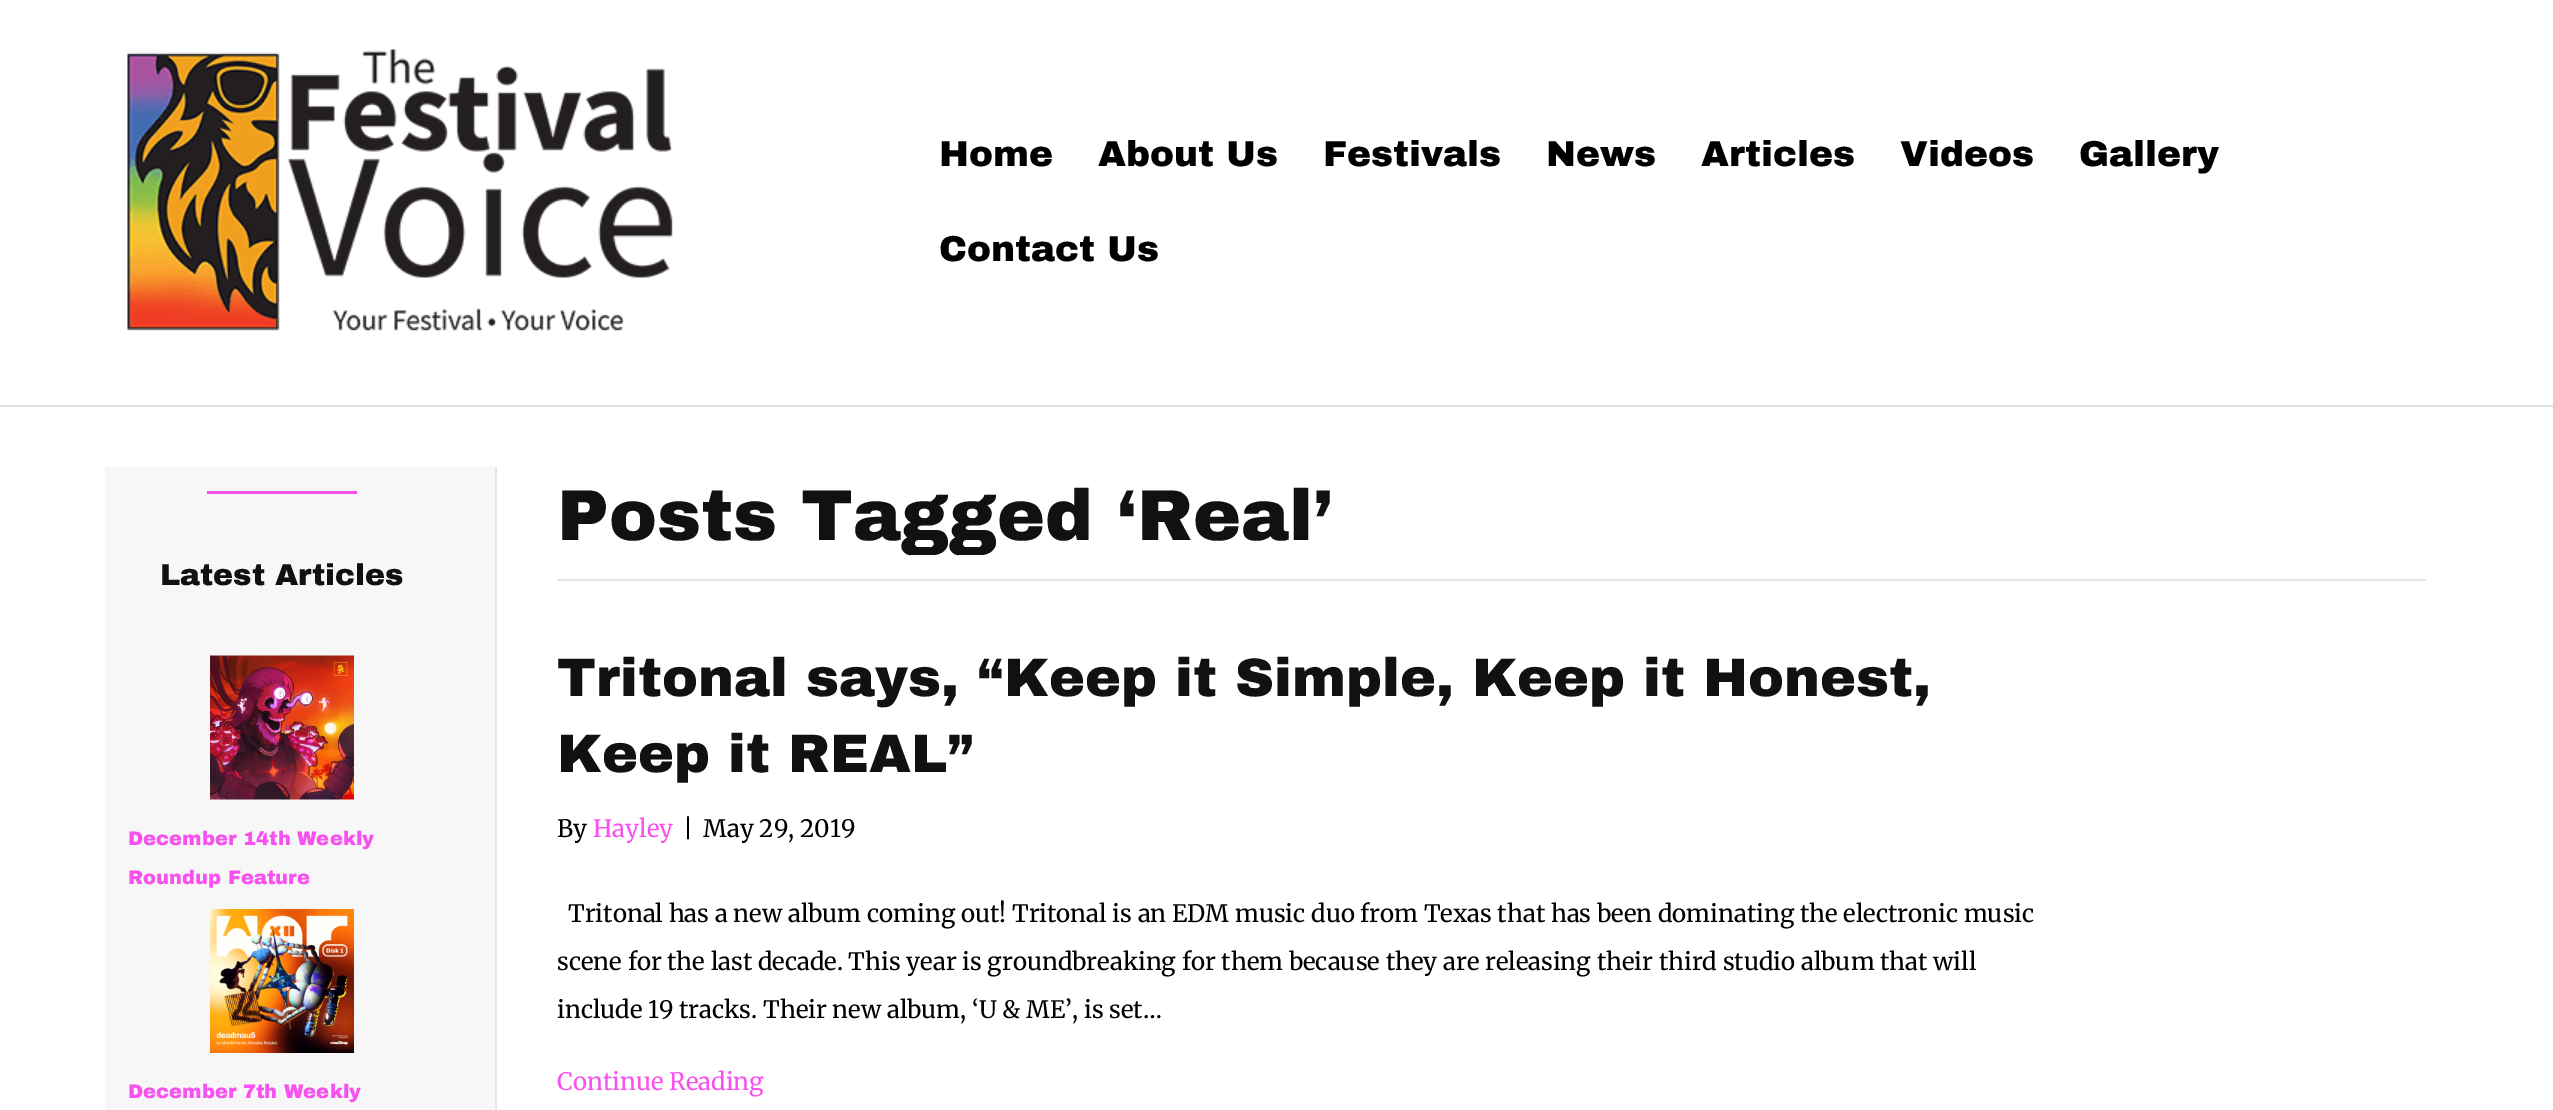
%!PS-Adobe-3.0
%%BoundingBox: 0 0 2553 1110
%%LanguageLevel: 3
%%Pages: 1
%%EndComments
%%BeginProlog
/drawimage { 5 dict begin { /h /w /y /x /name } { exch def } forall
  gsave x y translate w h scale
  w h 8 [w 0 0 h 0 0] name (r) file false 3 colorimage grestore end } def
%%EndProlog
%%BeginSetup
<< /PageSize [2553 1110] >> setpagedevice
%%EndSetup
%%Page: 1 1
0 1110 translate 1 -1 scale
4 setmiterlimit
1 setgray
0 0 2553 1110 rectfill
0.871 setgray
0 405 2553 2 rectfill
(images/1.raw) 127 49 546 282 drawimage
0.969 setgray
105 467 390 643 rectfill
0.969 0.318 0.937 setrgbcolor
207 491 150 3 rectfill
(images/2.raw) 210 655 144 145 drawimage
(images/3.raw) 210 909 144 144 drawimage
0.902 setgray
495 467 2 643 rectfill
557 579 1869 2 rectfill
/ArchivoBlack-Black [36 0 0 -36 0 0] selectfont
0 setgray
939 166 moveto (Home) show
1098 166 moveto (About Us) show
1323 166 moveto (Festivals) show
1546 166 moveto (News) show
1701 166 moveto (Articles) show
1900 166 moveto (Videos) show
2079 166 moveto (Gallery) show
939 261 moveto (Contact Us) show
/ArchivoBlack-Black [30 0 0 -30 0 0] selectfont
0.067 setgray
160 585 moveto (Latest Articles) show
/ArchivoBlack-Black [19.5 0 0 -19.5 0 0] selectfont
0.969 0.318 0.937 setrgbcolor
128 845 moveto (December 14th Weekly) show
128 884 moveto (Roundup Feature) show
128 1098 moveto (December 7th Weekly) show
/ArchivoBlack-Black [72 0 0 -72 0 0] selectfont
0.067 setgray
557 540 moveto (Posts Tagged ‘Real’) show
/ArchivoBlack-Black [54 0 0 -54 0 0] selectfont
557 696 moveto (Tritonal says, “Keep it Simple, Keep it Honest,) show
557 772 moveto (Keep it REAL”) show
/Merriweather-Regular [24 0 0 -24 0 0] selectfont
0 setgray
557 837 moveto (By) show
0.969 0.318 0.937 setrgbcolor
593 837 moveto (Hayley) show
0 setgray
683 837 moveto (|) show
703 837 moveto (May 29, 2019) show
568 922 moveto (Tritonal has a new album coming out! Tritonal is an EDM music duo from Texas that has been dominating the electronic music) show
557 970 moveto (scene for the last decade. This year is groundbreaking for them because they are releasing their third studio album that will) show
557 1018 moveto (include 19 tracks. Their new album, ‘U & ME’, is set…) show
0.969 0.318 0.937 setrgbcolor
557 1090 moveto (Continue Reading) show
showpage
%%EOF
